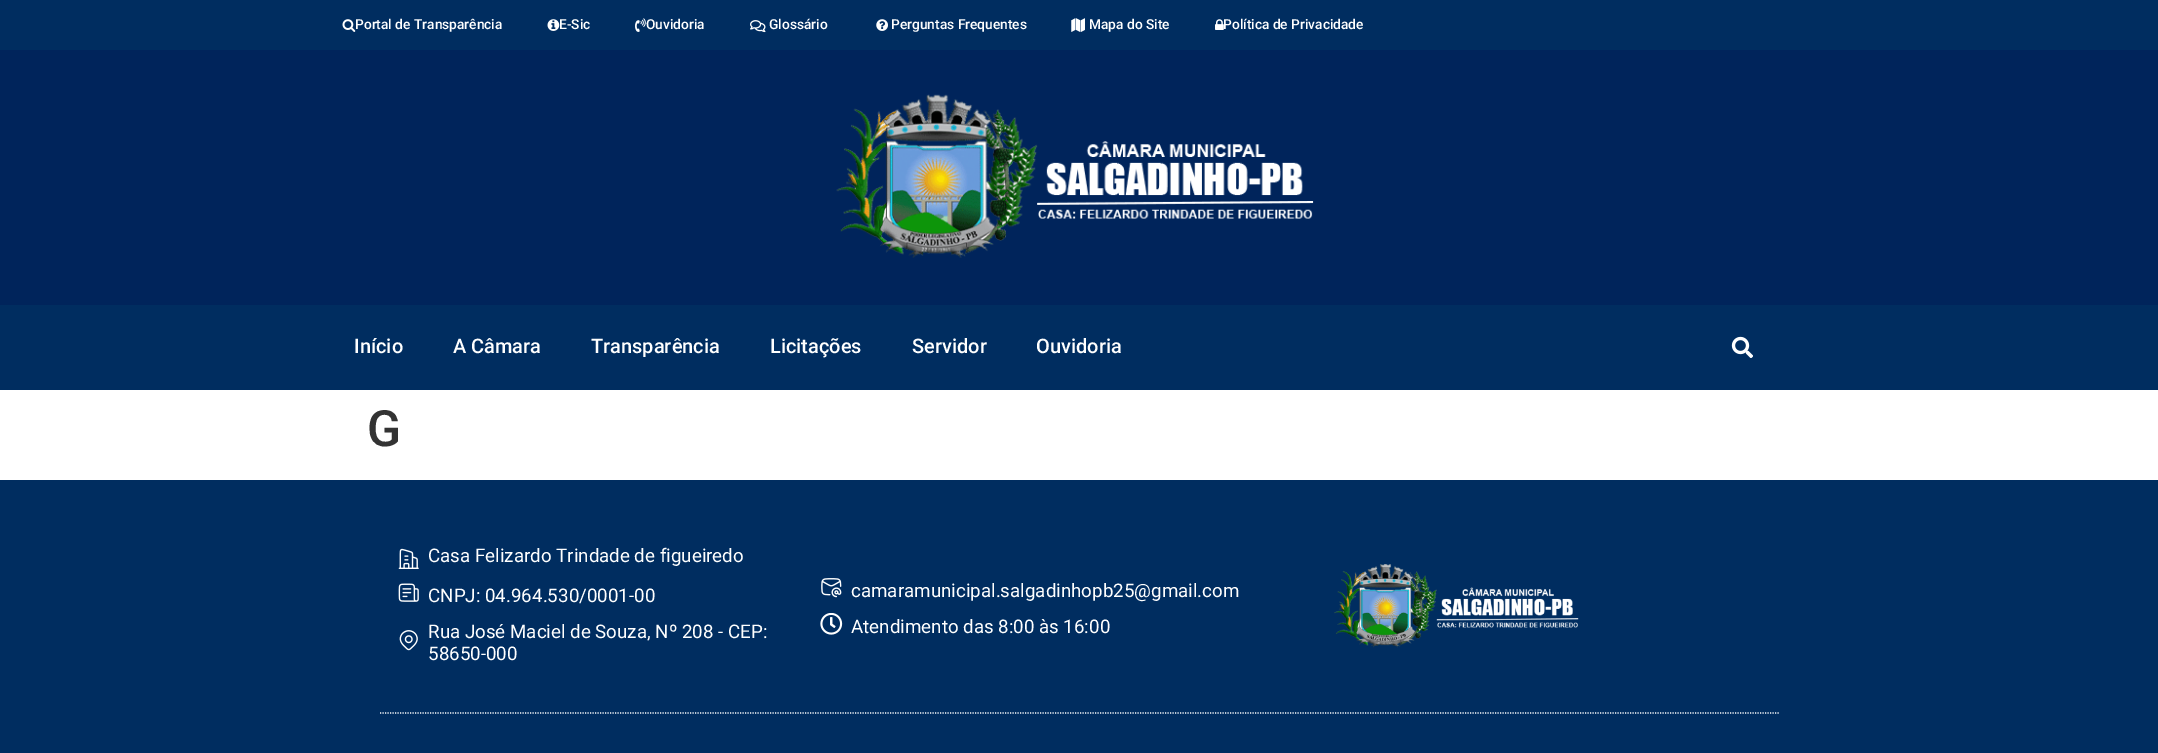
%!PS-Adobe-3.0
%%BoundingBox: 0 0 2158 753
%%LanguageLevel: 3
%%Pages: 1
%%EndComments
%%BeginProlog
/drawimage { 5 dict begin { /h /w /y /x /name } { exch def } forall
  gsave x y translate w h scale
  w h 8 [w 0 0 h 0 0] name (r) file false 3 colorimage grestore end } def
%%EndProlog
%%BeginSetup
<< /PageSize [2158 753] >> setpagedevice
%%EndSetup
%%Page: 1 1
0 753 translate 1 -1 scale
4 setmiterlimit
1 setgray
0 0 2158 753 rectfill
0 0.176 0.376 setrgbcolor
0 0 2158 50 rectfill
(images/1.raw) 342 19 14 13 drawimage
(images/2.raw) 547 19 13 12 drawimage
(images/3.raw) 635 18 11 14 drawimage
(images/4.raw) 750 20 16 13 drawimage
(images/5.raw) 876 19 12 12 drawimage
(images/6.raw) 1071 18 14 14 drawimage
(images/7.raw) 1215 19 9 11 drawimage
0 0.141 0.357 setrgbcolor
0 50 2158 255 rectfill
(images/8.raw) 836 94 478 164 drawimage
0 0.176 0.376 setrgbcolor
0 305 2158 85 rectfill
(images/9.raw) 1731 336 22 22 drawimage
0 480 2158 273 rectfill
(images/10.raw) 398 548 21 21 drawimage
(images/11.raw) 398 583 21 19 drawimage
(images/12.raw) 399 630 19 21 drawimage
(images/13.raw) 821 578 21 20 drawimage
(images/14.raw) 820 613 23 22 drawimage
(images/15.raw) 1334 564 245 84 drawimage
1 setgray
1.2 setlinewidth
[1.25 1.25] 0 setdash
newpath 380 713 moveto 1780 713 lineto stroke
/Roboto-Medium [13.75 0 0 -13.75 0 0] selectfont
355 29 moveto (Portal de Transparência) show
559 29 moveto (E-Sic) show
646 29 moveto (Ouvidoria) show
769 29 moveto (Glossário) show
891 29 moveto (Perguntas Frequentes) show
1089 29 moveto (Mapa do Site) show
1223 29 moveto (Política de Privacidade) show
/Roboto-Medium [20 0 0 -20 0 0] selectfont
354 353 moveto (Início) show
453 353 moveto (A Câmara) show
591 353 moveto (Transparência) show
770 353 moveto (Licitações) show
912 353 moveto (Servidor) show
1036 353 moveto (Ouvidoria) show
/Roboto-Medium [50 0 0 -50 0 0] selectfont
0.2 setgray
367 446 moveto (G) show
/Roboto-Regular [18.75 0 0 -18.75 0 0] selectfont
1 setgray
428 562 moveto (Casa Felizardo Trindade de figueiredo) show
428 602 moveto (CNPJ: 04.964.530/0001-00) show
428 638 moveto (Rua José Maciel de Souza, Nº 208 - CEP:) show
428 660 moveto (58650-000) show
851 597 moveto (camaramunicipal.salgadinhopb25@gmail.com) show
851 633 moveto (Atendimento das 8:00 às 16:00) show
showpage
%%EOF
